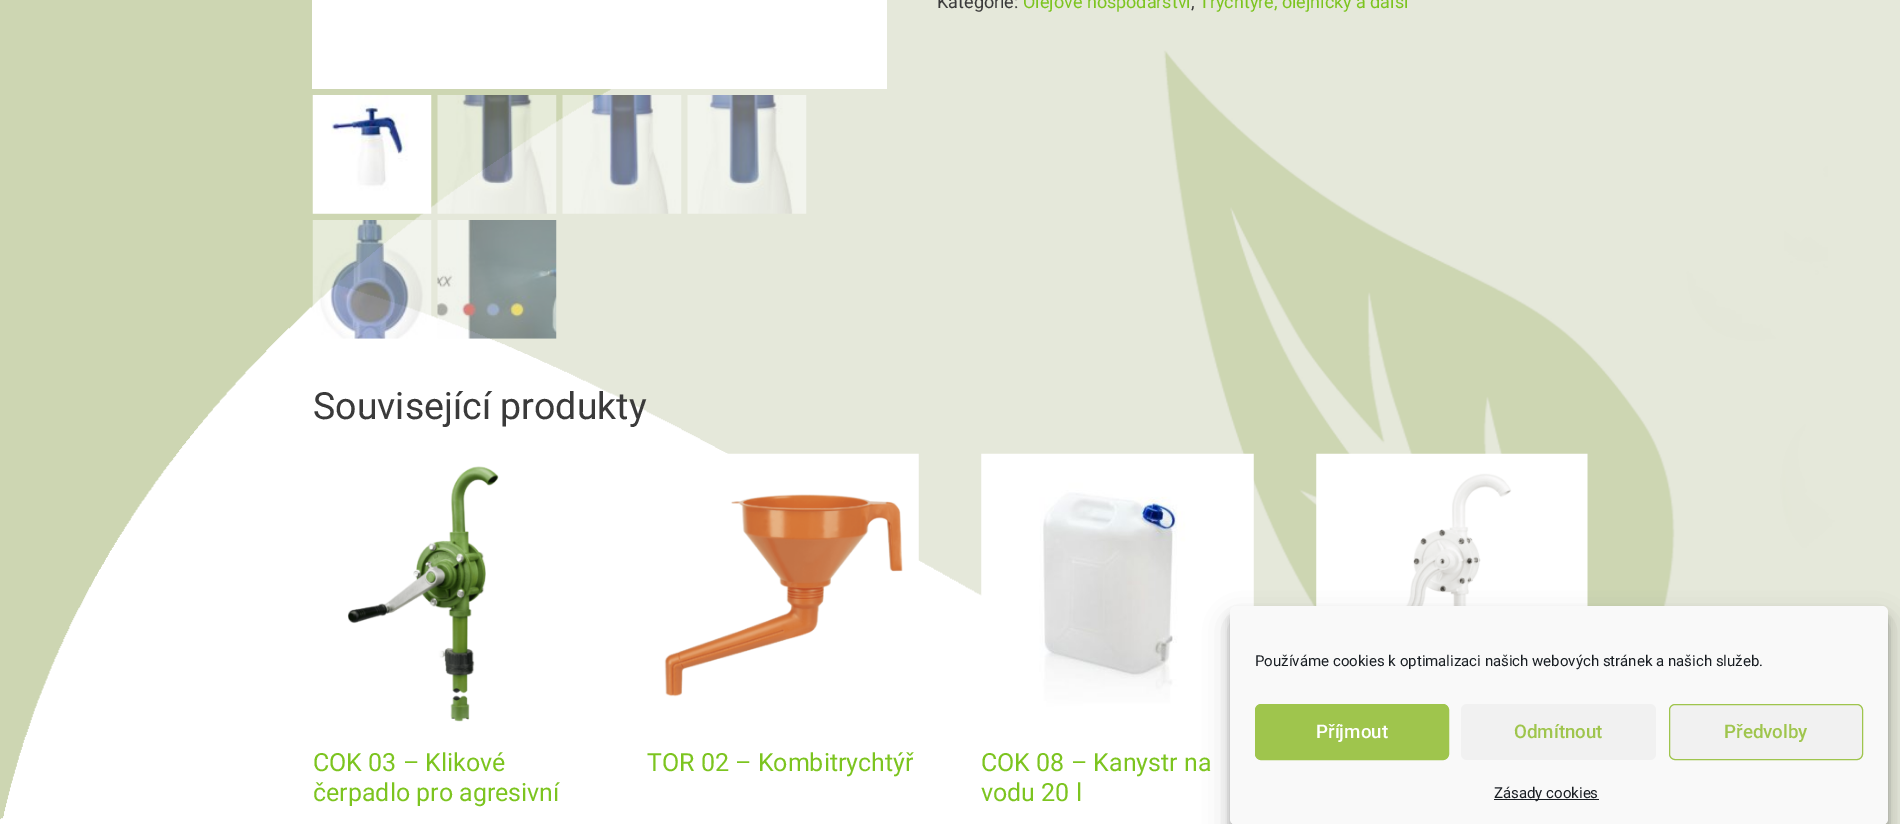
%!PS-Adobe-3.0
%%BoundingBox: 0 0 1900 824
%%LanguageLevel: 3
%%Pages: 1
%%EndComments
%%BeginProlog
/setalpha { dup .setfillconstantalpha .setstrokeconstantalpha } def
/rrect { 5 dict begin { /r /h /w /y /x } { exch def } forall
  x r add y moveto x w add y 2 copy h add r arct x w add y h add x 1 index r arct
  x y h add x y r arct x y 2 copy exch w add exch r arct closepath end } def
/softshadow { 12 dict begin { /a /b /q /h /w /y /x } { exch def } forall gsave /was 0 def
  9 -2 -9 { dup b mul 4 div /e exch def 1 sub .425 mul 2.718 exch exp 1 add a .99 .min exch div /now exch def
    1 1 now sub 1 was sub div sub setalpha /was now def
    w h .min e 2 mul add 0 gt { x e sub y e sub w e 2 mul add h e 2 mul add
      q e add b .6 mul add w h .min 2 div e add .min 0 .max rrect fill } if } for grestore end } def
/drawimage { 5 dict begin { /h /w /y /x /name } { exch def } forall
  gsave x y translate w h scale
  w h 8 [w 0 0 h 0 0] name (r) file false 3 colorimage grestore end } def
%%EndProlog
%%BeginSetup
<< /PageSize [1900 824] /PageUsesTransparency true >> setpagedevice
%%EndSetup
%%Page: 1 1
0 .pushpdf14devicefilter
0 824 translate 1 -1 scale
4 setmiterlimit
1 setgray
0 0 1900 824 rectfill
(images/1.raw) 0 0 1900 824 drawimage
312 0 575 89 rectfill
(images/2.raw) 312 95 120 119 drawimage
(images/3.raw) 437 95 120 119 drawimage
(images/4.raw) 562 95 120 119 drawimage
(images/5.raw) 687 95 120 119 drawimage
(images/6.raw) 312 220 120 119 drawimage
(images/7.raw) 437 220 120 119 drawimage
(images/8.raw) 1316 453 272 153 drawimage
(images/9.raw) 347 466 152 256 drawimage
(images/10.raw) 664 453 255 244 drawimage
(images/11.raw) 981 453 273 274 drawimage
0 setgray
1230 614 658 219 6 4 0.23 softshadow
1230 619 658 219 6 12.5 0.19 softshadow
0.976 setgray
1230 606 658 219 6 rrect fill
0.624 0.773 0.302 setrgbcolor
1255.5 704.5 193 55 5.5 rrect gsave fill grestore
stroke
0.945 setgray
1461 704 195 56 6 rrect fill
1669.5 704.5 193 55 5.5 rrect gsave fill grestore
0.624 0.773 0.302 setrgbcolor
stroke
0.098 0.118 0.137 setrgbcolor
1494 799 105 1 rectfill
/Roboto-Regular [18 0 0 -18 0 0] selectfont
0.227 setgray
937 8 moveto (Kategorie:) show
0.486 0.769 0.122 setrgbcolor
1023 8 moveto (Olejové hospodářství) show
0.227 setgray
1191 8 moveto (,) show
0.486 0.769 0.122 setrgbcolor
1199 8 moveto (Trychtýře, olejničky a další) show
/Roboto-Regular [37.5 0 0 -37.5 0 0] selectfont
0.227 setgray
313 419 moveto (Související produkty) show
/Roboto-Regular [25 0 0 -25 0 0] selectfont
0.486 0.769 0.122 setrgbcolor
313 771 moveto (COK 03 – Klikové) show
313 801 moveto (čerpadlo pro agresivní) show
647 771 moveto (TOR 02 – Kombitrychtýř) show
981 771 moveto (COK 08 – Kanystr na) show
981 801 moveto (vodu 20 l) show
/Roboto-Regular [15 0 0 -15 0 0] selectfont
0.098 0.118 0.137 setrgbcolor
1255 666 moveto (Používáme cookies k optimalizaci našich webových stránek a našich služeb.) show
/Roboto-Medium [18.75 0 0 -18.75 0 0] selectfont
1 setgray
1316 738 moveto (Příjmout) show
0.624 0.773 0.302 setrgbcolor
1514 738 moveto (Odmítnout) show
1724 738 moveto (Předvolby) show
/Roboto-Regular [15 0 0 -15 0 0] selectfont
0.098 0.118 0.137 setrgbcolor
1494 798 moveto (Zásady cookies) show
.poppdf14devicefilter showpage
%%EOF
